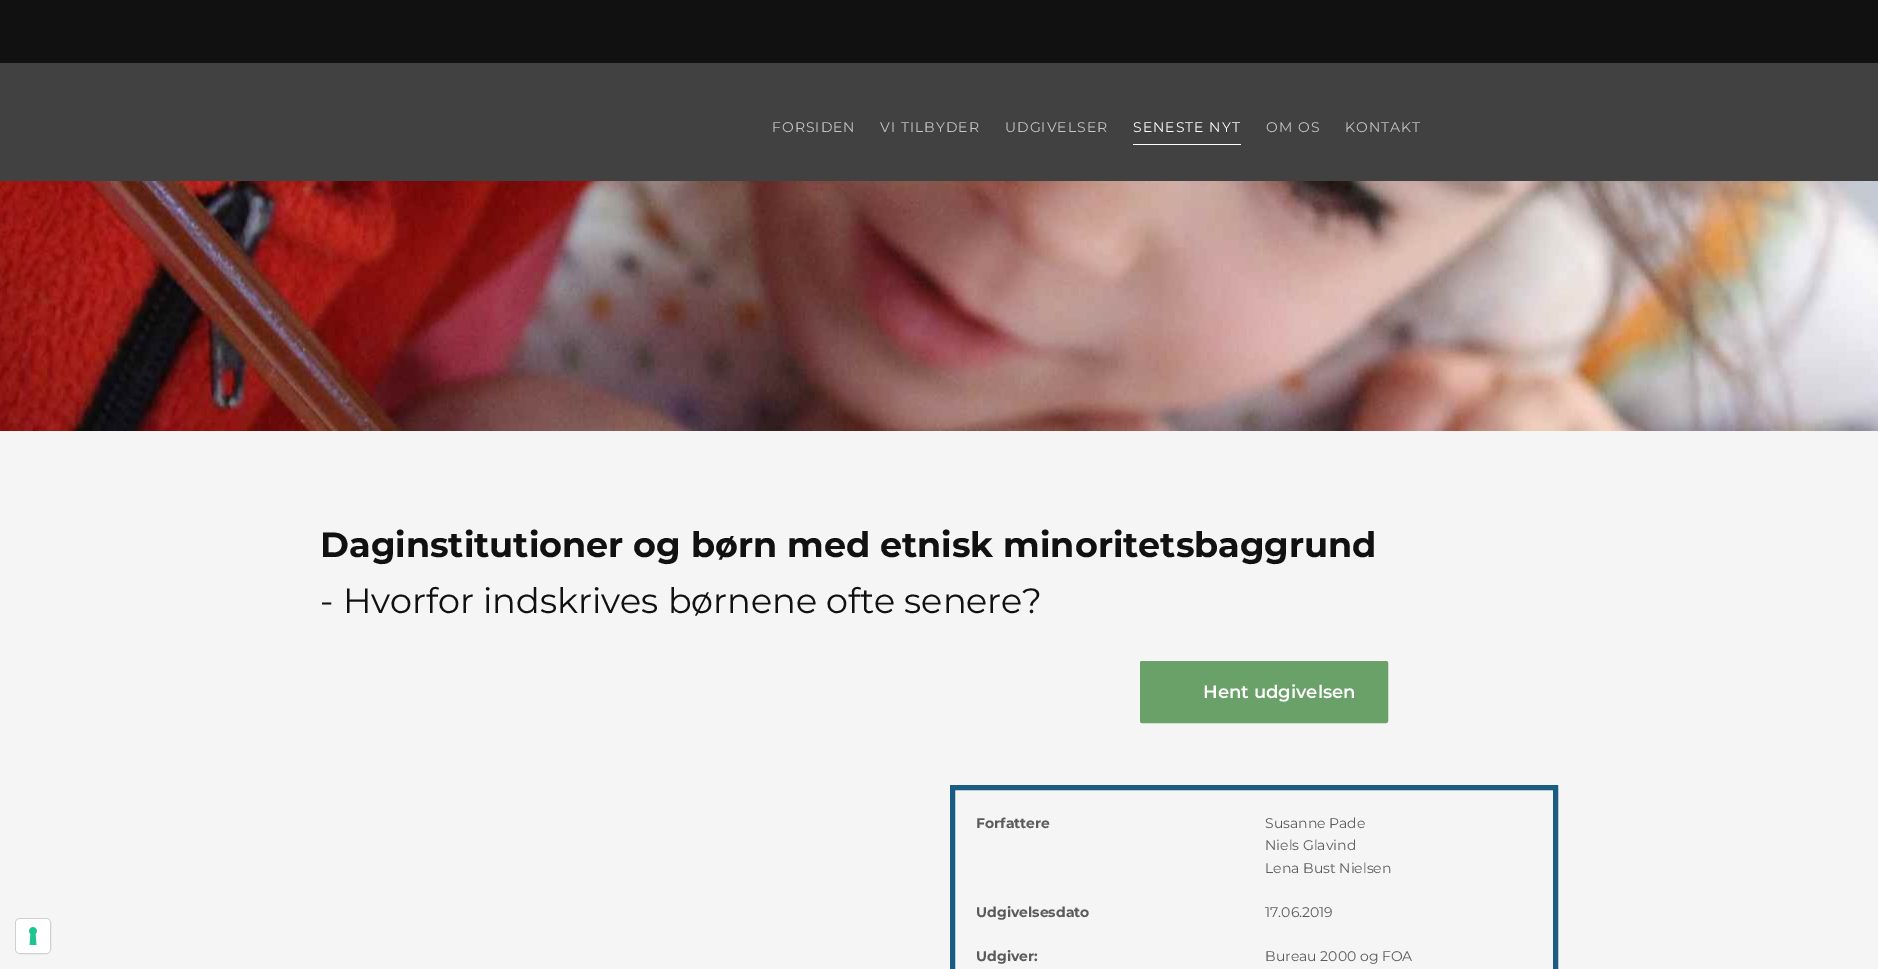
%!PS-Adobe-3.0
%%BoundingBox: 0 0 1878 969
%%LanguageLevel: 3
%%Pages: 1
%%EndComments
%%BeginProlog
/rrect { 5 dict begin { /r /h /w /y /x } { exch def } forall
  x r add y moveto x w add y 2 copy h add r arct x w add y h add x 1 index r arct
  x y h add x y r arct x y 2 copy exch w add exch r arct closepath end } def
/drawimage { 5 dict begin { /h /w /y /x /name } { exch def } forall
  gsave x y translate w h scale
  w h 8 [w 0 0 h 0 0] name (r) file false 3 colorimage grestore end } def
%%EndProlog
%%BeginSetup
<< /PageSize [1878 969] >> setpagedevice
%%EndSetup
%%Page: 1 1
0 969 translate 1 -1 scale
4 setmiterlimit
0.067 setgray
0 0 1878 969 rectfill
0.961 setgray
0 431 1878 538 rectfill
0.816 setgray
15.5 918.5 35 35 4.5 rrect stroke
1 setgray
16 919 34 34 4 rrect fill
(images/1.raw) 29 927 8 18 drawimage
0.255 setgray
0 63 1878 118 rectfill
1 setgray
1133 144 108 1 rectfill
(images/2.raw) 0 181 1878 250 drawimage
0.416 0.631 0.408 setrgbcolor
1141.5 662.5 245 59 0.5 rrect gsave fill grestore
3 setlinewidth
stroke
0.098 0.361 0.514 setrgbcolor
5 setlinewidth
952.5 787.5 603 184 rectstroke
/Montserrat-Regular [14 0 0 -14 0 0] selectfont
0.773 setgray
772 132 moveto 1 0 (FORSIDEN) ashow
880 132 moveto 1 0 (VI TILBYDER) ashow
1005 132 moveto 1 0 (UDGIVELSER) ashow
1 setgray
1133 132 moveto 1 0 (SENESTE NYT) ashow
0.773 setgray
1266 132 moveto 1 0 (OM OS) ashow
1345 132 moveto 1 0 (KONTAKT) ashow
/Montserrat-Bold [35 0 0 -35 0 0] selectfont
0.067 setgray
320 557 moveto (Daginstitutioner og børn med etnisk minoritetsbaggrund) show
/Montserrat-Regular [35 0 0 -35 0 0] selectfont
320 613 moveto (- Hvorfor indskrives børnene ofte senere?) show
/Montserrat-SemiBold [18 0 0 -18 0 0] selectfont
1 setgray
1203 698 moveto (Hent udgivelsen) show
/Montserrat-Bold [14 0 0 -14 0 0] selectfont
0.357 setgray
976 828 moveto (Forfattere) show
/Montserrat-Regular [14 0 0 -14 0 0] selectfont
1265 828 moveto (Susanne Pade) show
1265 850 moveto (Niels Glavind) show
1265 873 moveto (Lena Bust Nielsen) show
/Montserrat-Bold [14 0 0 -14 0 0] selectfont
976 917 moveto (Udgivelsesdato) show
/Montserrat-Regular [14 0 0 -14 0 0] selectfont
1265 917 moveto (17.06.2019) show
/Montserrat-Bold [14 0 0 -14 0 0] selectfont
976 961 moveto (Udgiver:) show
/Montserrat-Regular [14 0 0 -14 0 0] selectfont
1265 961 moveto (Bureau 2000 og FOA) show
showpage
%%EOF
